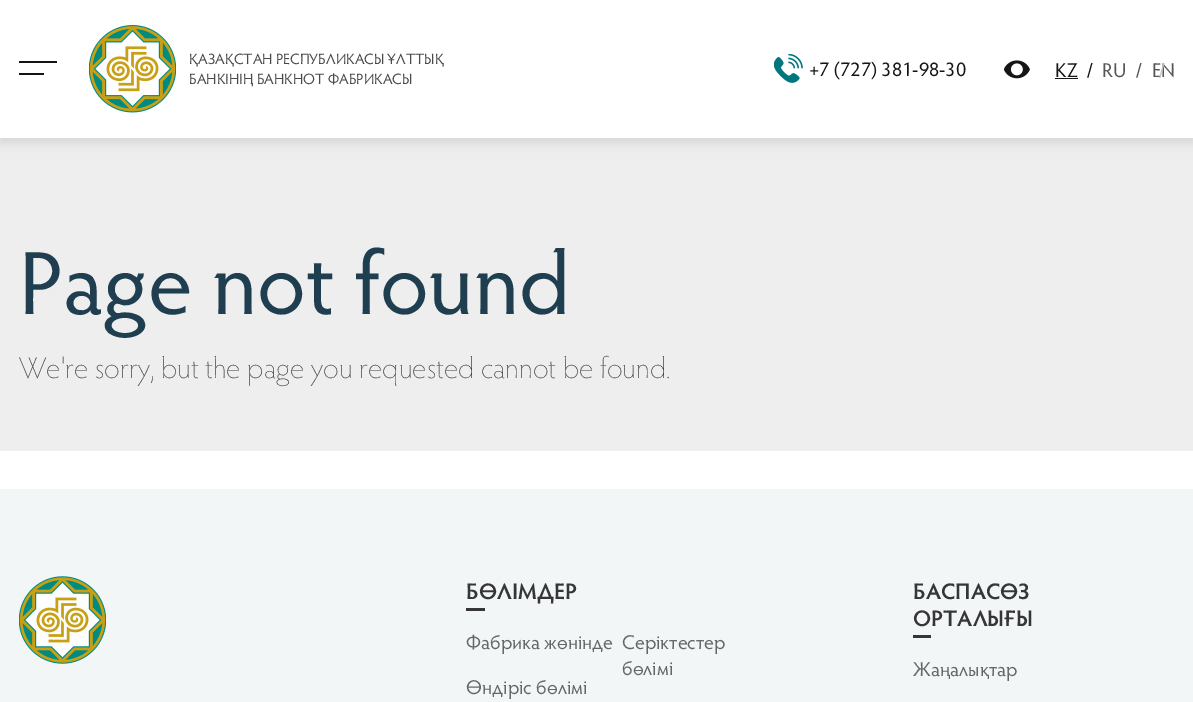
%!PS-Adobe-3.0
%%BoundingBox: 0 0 1193 702
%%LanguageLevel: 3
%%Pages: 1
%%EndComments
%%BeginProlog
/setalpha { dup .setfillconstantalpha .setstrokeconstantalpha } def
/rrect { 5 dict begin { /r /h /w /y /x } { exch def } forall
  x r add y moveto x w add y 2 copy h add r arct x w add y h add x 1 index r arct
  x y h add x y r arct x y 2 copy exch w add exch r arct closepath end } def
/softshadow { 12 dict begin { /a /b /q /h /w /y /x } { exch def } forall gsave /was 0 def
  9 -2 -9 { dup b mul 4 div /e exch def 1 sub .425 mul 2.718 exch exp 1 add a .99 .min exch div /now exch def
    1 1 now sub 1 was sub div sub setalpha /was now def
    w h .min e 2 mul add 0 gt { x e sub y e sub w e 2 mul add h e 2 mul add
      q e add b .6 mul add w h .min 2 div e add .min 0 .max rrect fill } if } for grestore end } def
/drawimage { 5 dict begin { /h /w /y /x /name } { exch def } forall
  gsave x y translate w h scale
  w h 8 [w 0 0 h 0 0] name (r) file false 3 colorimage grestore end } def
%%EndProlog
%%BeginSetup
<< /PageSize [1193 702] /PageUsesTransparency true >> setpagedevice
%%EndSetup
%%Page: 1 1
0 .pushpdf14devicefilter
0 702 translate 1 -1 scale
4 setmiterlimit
1 setgray
0 0 1193 702 rectfill
0.933 setgray
0 138 1193 313 rectfill
0 setgray
0 5 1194 138 0 5 0.1 softshadow
1 setgray
0 0 1193 138 rectfill
0.082 setgray
19 61 38 2 rectfill
19 73 25 2 rectfill
(images/1.raw) 89 25 87 88 drawimage
(images/2.raw) 774 54 29 29 drawimage
(images/3.raw) 1004 60 26 19 drawimage
1055 78 23 1 rectfill
0.949 0.965 0.969 setrgbcolor
0 489 1193 213 rectfill
(images/4.raw) 19 576 87 88 drawimage
0.216 0.212 0.212 setrgbcolor
466 608 19 3 rectfill
913 635 18 3 rectfill
/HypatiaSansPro-Regular [15 0 0 -15 0 0] selectfont
0.29 setgray
189 64 moveto (ҚАЗАҚСТАН РЕСПУБЛИКАСЫ ҰЛТТЫҚ) show
189 84 moveto (БАНКІНІҢ БАНКНОТ ФАБРИКАСЫ) show
/HypatiaSansPro-Regular [20 0 0 -20 0 0] selectfont
0.082 setgray
809 76 moveto (+7 \(727\) 381-98-30) show
1055 77 moveto (KZ) show
1087 77 moveto (/) show
0.333 setgray
1102 77 moveto (RU) show
1136 77 moveto (/) show
1152 77 moveto (EN) show
0.769 setgray
1159 77 moveto (/) show
/HypatiaSansPro-Regular [90 0 0 -90 0 0] selectfont
0.122 0.247 0.314 setrgbcolor
19 314 moveto (Page not found) show
/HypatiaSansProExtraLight-ExtraLight [30 0 0 -30 0 0] selectfont
0.267 setgray
19 378 moveto (We're sorry, but the page you requested cannot be found.) show
/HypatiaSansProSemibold-SemiBold [22.5 0 0 -22.5 0 0] selectfont
0.216 0.212 0.212 setrgbcolor
466 599 moveto (БӨЛІМДЕР) show
/HypatiaSansPro-Regular [20 0 0 -20 0 0] selectfont
0.4 setgray
466 649 moveto (Фабрика жөнінде) show
466 694 moveto (Өндіріс бөлімі) show
622 649 moveto (Серiктестер) show
622 675 moveto (бөлiмi) show
/HypatiaSansProSemibold-SemiBold [22.5 0 0 -22.5 0 0] selectfont
0.216 0.212 0.212 setrgbcolor
913 599 moveto (БАСПАСӨЗ) show
913 626 moveto (ОРТАЛЫҒЫ) show
/HypatiaSansPro-Regular [20 0 0 -20 0 0] selectfont
0.4 setgray
913 676 moveto (Жаңалықтар) show
.poppdf14devicefilter showpage
%%EOF
